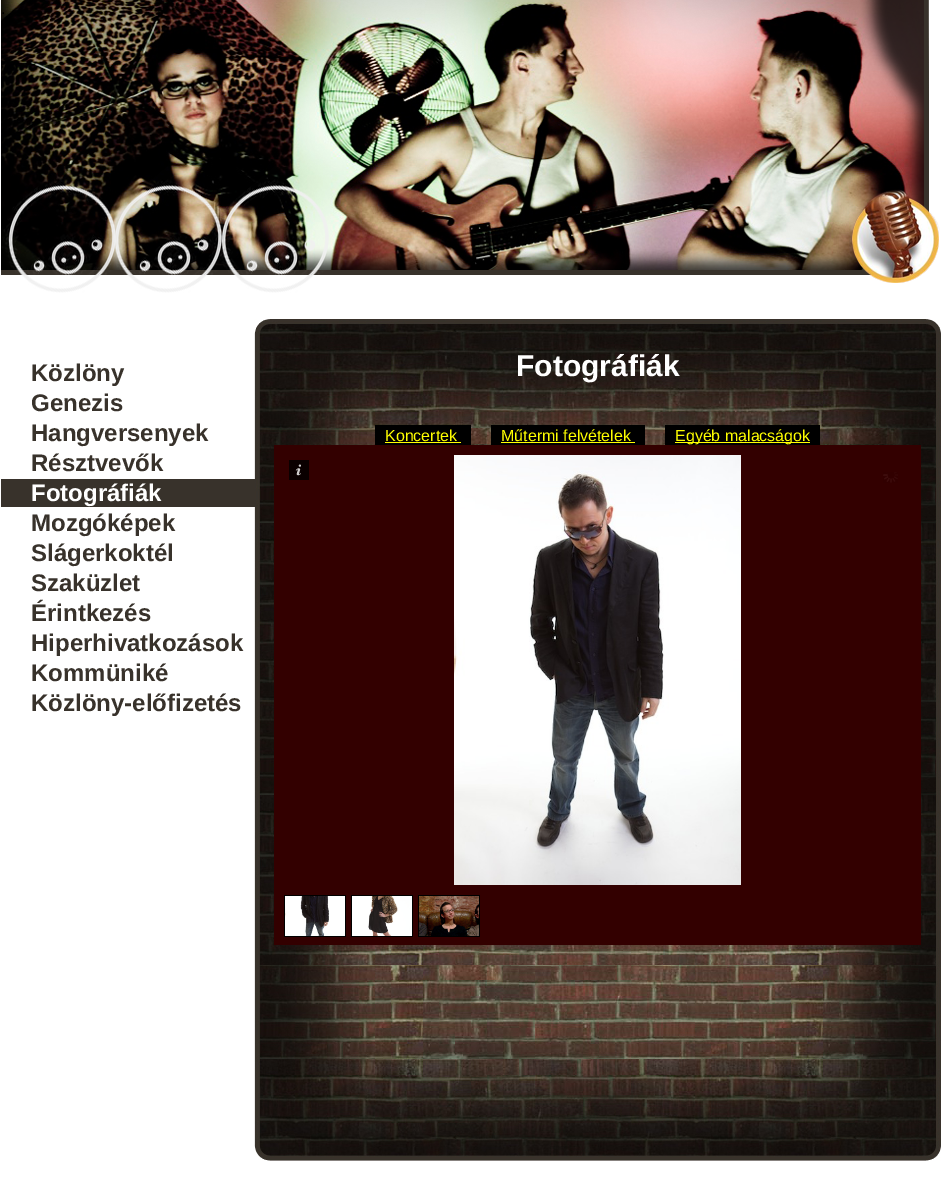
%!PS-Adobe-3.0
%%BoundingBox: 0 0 942 1191
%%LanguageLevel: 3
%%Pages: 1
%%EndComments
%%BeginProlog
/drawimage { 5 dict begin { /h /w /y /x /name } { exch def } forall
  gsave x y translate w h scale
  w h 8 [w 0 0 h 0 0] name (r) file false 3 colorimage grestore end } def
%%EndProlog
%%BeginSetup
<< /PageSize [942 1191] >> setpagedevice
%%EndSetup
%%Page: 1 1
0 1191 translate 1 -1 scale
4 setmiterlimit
1 setgray
0 0 942 1191 rectfill
(images/1.raw) 1 0 939 293 drawimage
(images/3.raw) 254 427 687 538 drawimage
0.22 0.196 0.169 setrgbcolor
1 479 254 28 rectfill
(images/2.raw) 254 319 687 108 drawimage
0 setgray
375 425 96 20 rectfill
1 1 0 setrgbcolor
385 442 76 1 rectfill
0 setgray
491 425 154 20 rectfill
1 1 0 setrgbcolor
501 442 134 1 rectfill
0 setgray
665 425 155 20 rectfill
1 1 0 setrgbcolor
675 442 135 1 rectfill
0.2 0 0 setrgbcolor
274 445 647 500 rectfill
0.039 0 0 setrgbcolor
289 460 20 20 rectfill
(images/4.raw) 295 464 6 12 drawimage
(images/5.raw) 454 455 287 430 drawimage
(images/6.raw) 883 472 15 11 drawimage
0 setgray
284 895 62 42 rectfill
(images/7.raw) 285 896 60 40 drawimage
351 895 62 42 rectfill
(images/8.raw) 352 896 60 40 drawimage
418 895 62 42 rectfill
(images/9.raw) 419 896 60 40 drawimage
(images/10.raw) 254 965 687 196 drawimage
/LiberationSans-Regular [16 0 0 -16 0 0] selectfont
1 14 moveto (.) show
/LiberationSans-Bold [24 0 0 -24 0 0] selectfont
0.22 0.196 0.169 setrgbcolor
31 381 moveto (Közlöny) show
31 411 moveto (Genezis) show
31 441 moveto (Hangversenyek) show
31 471 moveto (Résztvevők) show
1 setgray
31 501 moveto (Fotográfiák) show
0.22 0.196 0.169 setrgbcolor
31 531 moveto (Mozgóképek) show
31 561 moveto (Slágerkoktél) show
31 591 moveto (Szaküzlet) show
31 621 moveto (Érintkezés) show
31 651 moveto (Hiperhivatkozások) show
31 681 moveto (Kommüniké) show
31 711 moveto (Közlöny-előfizetés) show
/LiberationSans-Bold [30 0 0 -30 0 0] selectfont
1 setgray
516 376 moveto (Fotográfiák) show
/LiberationSans-Regular [16 0 0 -16 0 0] selectfont
1 1 0 setrgbcolor
385 441 moveto (Koncertek) show
501 441 moveto (Műtermi felvételek) show
675 441 moveto (Egyéb malacságok) show
showpage
%%EOF
